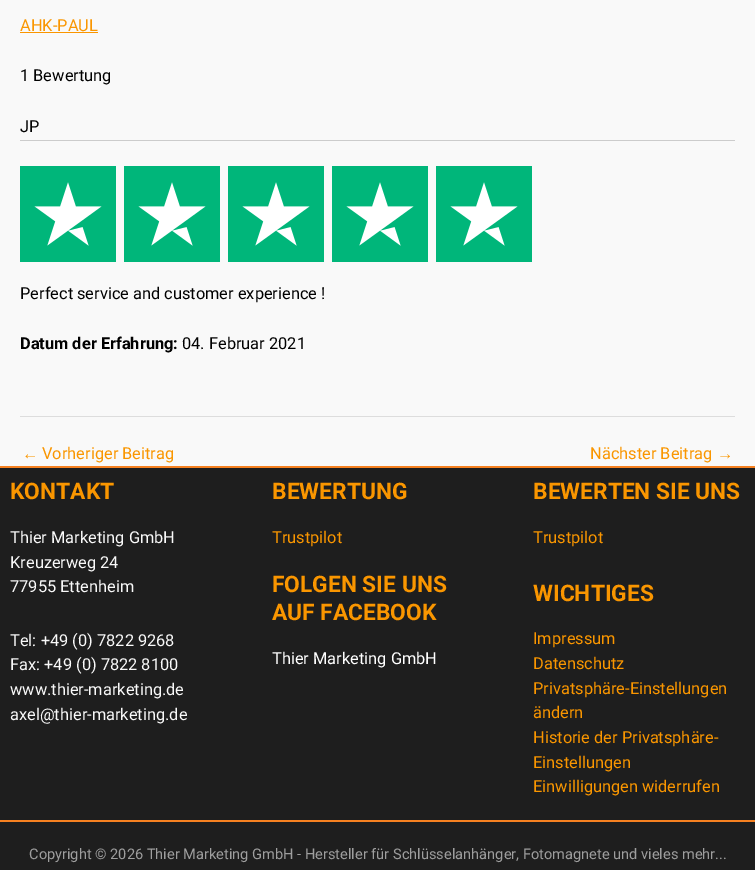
%!PS-Adobe-3.0
%%BoundingBox: 0 0 755 870
%%LanguageLevel: 3
%%Pages: 1
%%EndComments
%%BeginProlog
/drawimage { 5 dict begin { /h /w /y /x /name } { exch def } forall
  gsave x y translate w h scale
  w h 8 [w 0 0 h 0 0] name (r) file false 3 colorimage grestore end } def
%%EndProlog
%%BeginSetup
<< /PageSize [755 870] >> setpagedevice
%%EndSetup
%%Page: 1 1
0 870 translate 1 -1 scale
4 setmiterlimit
0.976 setgray
0 0 755 870 rectfill
0.98 0.588 0 setrgbcolor
20 32 78 1 rectfill
0.8 setgray
20 140 715 1 rectfill
(images/1.raw) 20 166 512 96 drawimage
0.867 setgray
20 416 715 1 rectfill
0.118 setgray
0 468 755 352 rectfill
0.965 0.506 0.129 setrgbcolor
0 466 755 2 rectfill
0.118 setgray
0 822 755 48 rectfill
0.965 0.506 0.129 setrgbcolor
0 820 755 2 rectfill
/Roboto-Regular [16.4 0 0 -16.4 0 0] selectfont
0.98 0.588 0 setrgbcolor
20 31 moveto (AHK-PAUL) show
0.004 setgray
20 81 moveto (1 Bewertung) show
20 132 moveto (JP) show
20 299 moveto (Perfect service and customer experience !) show
/Roboto-Bold [16.4 0 0 -16.4 0 0] selectfont
20 349 moveto (Datum der Erfahrung:) show
/Roboto-Regular [16.4 0 0 -16.4 0 0] selectfont
182 349 moveto (04. Februar 2021) show
/LiberationSans-Regular [16.4 0 0 -16.4 0 0] selectfont
0.98 0.588 0 setrgbcolor
22 459 moveto (←) show
/Roboto-Regular [16.4 0 0 -16.4 0 0] selectfont
42 459 moveto (Vorheriger Beitrag) show
590 459 moveto (Nächster Beitrag) show
/LiberationSans-Regular [16.4 0 0 -16.4 0 0] selectfont
717 459 moveto (→) show
/Roboto-Bold [22.75 0 0 -22.75 0 0] selectfont
10 499 moveto (KONTAKT) show
/Roboto-Regular [16.4 0 0 -16.4 0 0] selectfont
0.976 setgray
10 543 moveto (Thier Marketing GmbH) show
10 568 moveto (Kreuzerweg 24) show
10 592 moveto (77955 Ettenheim) show
10 646 moveto (Tel: +49 \(0\) 7822 9268) show
10 670 moveto (Fax: +49 \(0\) 7822 8100) show
10 695 moveto (www.thier-marketing.de) show
10 720 moveto (axel@thier-marketing.de) show
/Roboto-Bold [22.75 0 0 -22.75 0 0] selectfont
0.98 0.588 0 setrgbcolor
272 499 moveto (BEWERTUNG) show
/Roboto-Regular [16.4 0 0 -16.4 0 0] selectfont
272 543 moveto (Trustpilot) show
/Roboto-Bold [22.75 0 0 -22.75 0 0] selectfont
272 592 moveto (FOLGEN SIE UNS) show
272 620 moveto (AUF FACEBOOK) show
/Roboto-Regular [16.4 0 0 -16.4 0 0] selectfont
1 setgray
272 664 moveto (Thier Marketing GmbH) show
/Roboto-Bold [22.75 0 0 -22.75 0 0] selectfont
0.98 0.588 0 setrgbcolor
533 499 moveto (BEWERTEN SIE UNS) show
/Roboto-Regular [16.4 0 0 -16.4 0 0] selectfont
533 543 moveto (Trustpilot) show
/Roboto-Bold [22.75 0 0 -22.75 0 0] selectfont
533 601 moveto (WICHTIGES) show
/Roboto-Regular [16.4 0 0 -16.4 0 0] selectfont
533 644 moveto (Impressum) show
533 669 moveto (Datenschutz) show
533 694 moveto (Privatsphäre-Einstellungen) show
533 718 moveto (ändern) show
533 743 moveto (Historie der Privatsphäre-) show
533 768 moveto (Einstellungen) show
533 792 moveto (Einwilligungen widerrufen) show
/Roboto-Regular [14.6 0 0 -14.6 0 0] selectfont
0.62 setgray
29 859 moveto (Copyright © 2026 Thier Marketing GmbH - Hersteller für Schlüsselanhänger, Fotomagnete und vieles mehr...) show
showpage
%%EOF
